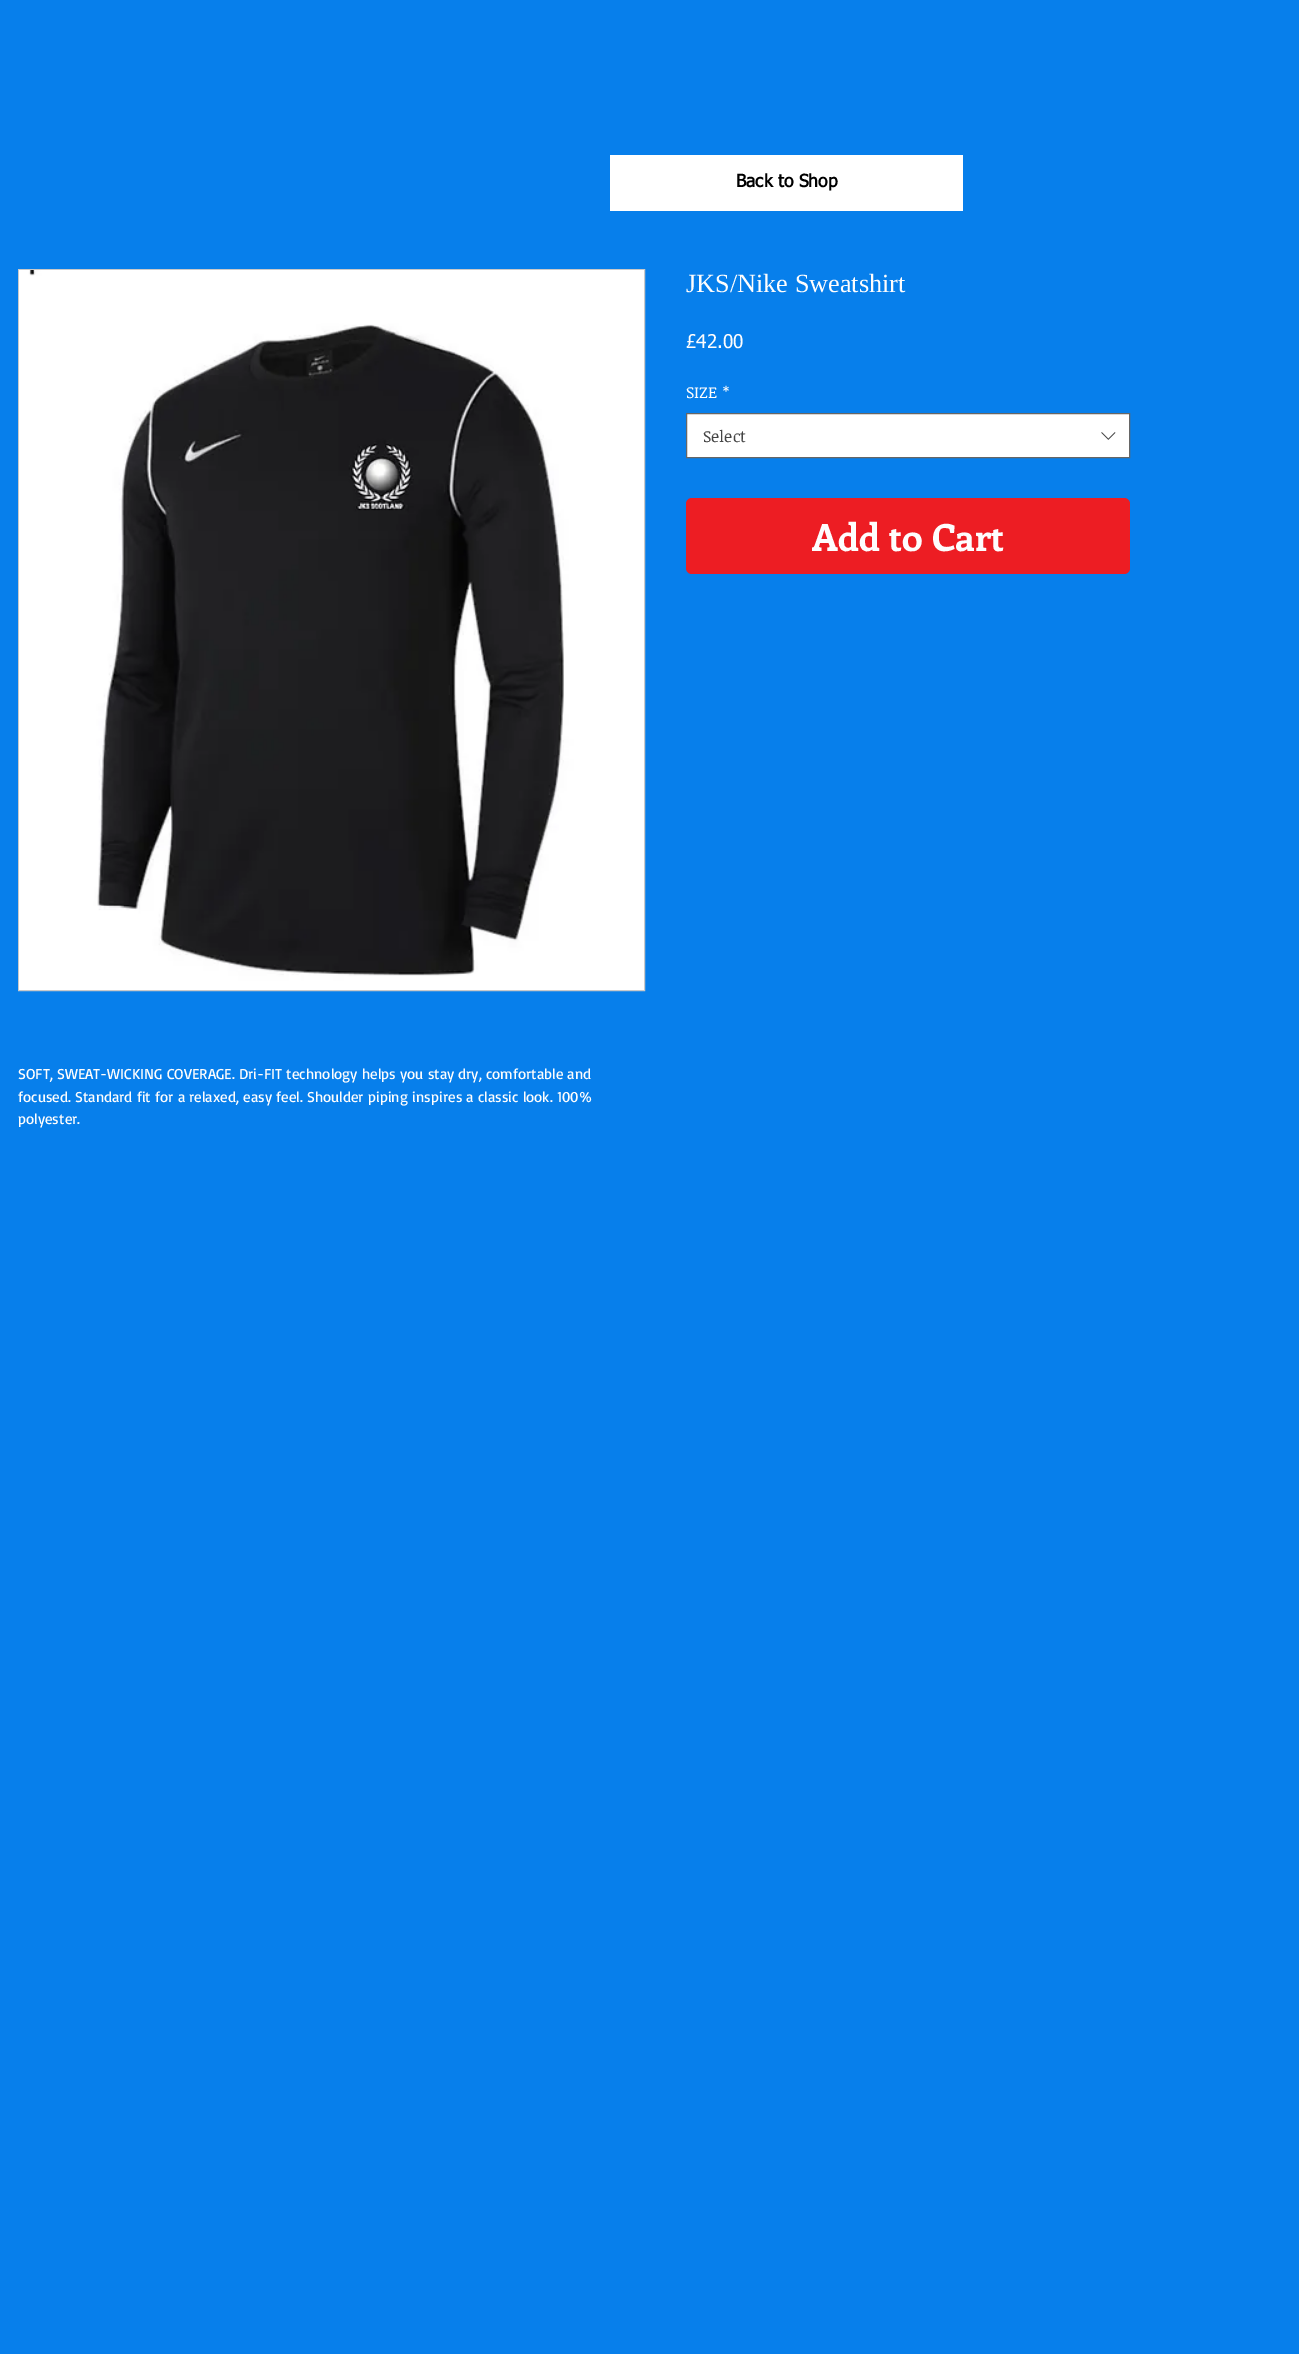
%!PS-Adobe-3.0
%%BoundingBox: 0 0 1299 2354
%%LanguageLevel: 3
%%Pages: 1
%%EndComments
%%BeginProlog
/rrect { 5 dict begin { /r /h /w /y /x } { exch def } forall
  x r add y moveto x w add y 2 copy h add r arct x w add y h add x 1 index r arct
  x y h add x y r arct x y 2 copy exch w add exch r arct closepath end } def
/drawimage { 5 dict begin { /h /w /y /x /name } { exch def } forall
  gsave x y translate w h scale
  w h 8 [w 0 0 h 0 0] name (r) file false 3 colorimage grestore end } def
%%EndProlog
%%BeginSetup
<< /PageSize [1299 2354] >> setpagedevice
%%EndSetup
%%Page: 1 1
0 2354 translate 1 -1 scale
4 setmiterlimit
0.027 0.498 0.922 setrgbcolor
0 0 1299 2354 rectfill
1 setgray
610 155 353 56 rectfill
newpath 686.5 413.5 moveto 1129.5 413.5 lineto 1129.5 457.5 lineto 686.5 457.5 lineto closepath gsave fill grestore
0.4 setgray
stroke
(images/1.raw) 1101 432 15 8 drawimage
0.929 0.114 0.137 setrgbcolor
686 498 444 76 6 rrect fill
0.792 0.788 0.788 setrgbcolor
18.5 269.5 626 721 rectstroke
(images/2.raw) 19 270 625 720 drawimage
/tahoma-Bold [17.5 0 0 -17.5 0 0] selectfont
0 setgray
736 187 moveto (Back to Shop) show
/LiberationSerif-Regular [26.25 0 0 -26.25 0 0] selectfont
0.996 0.992 0.992 setrgbcolor
686 292 moveto (JKS/Nike Sweatshirt) show
/tahoma-Regular [19 0 0 -19 0 0] selectfont
686 348 moveto (£42.00) show
/NoticiaText-Regular [16 0 0 -16 0 0] selectfont
686 398 moveto (SIZE) show
723 398 moveto (*) show
0.267 setgray
703 442 moveto (Select) show
/Enriqueta-Bold [37.5 0 0 -37.5 0 0] selectfont
0.996 0.992 0.992 setrgbcolor
812 551 moveto (Add to Cart) show
/Basic-Regular [15 0 0 -15 0 0] selectfont
18 1079 moveto (SOFT, SWEAT-WICKING COVERAGE. Dri-FIT technology helps you stay dry, comfortable and) show
18 1102 moveto (focused. Standard fit for a relaxed, easy feel. Shoulder piping inspires a classic look. 100%) show
18 1124 moveto (polyester.) show
showpage
%%EOF
